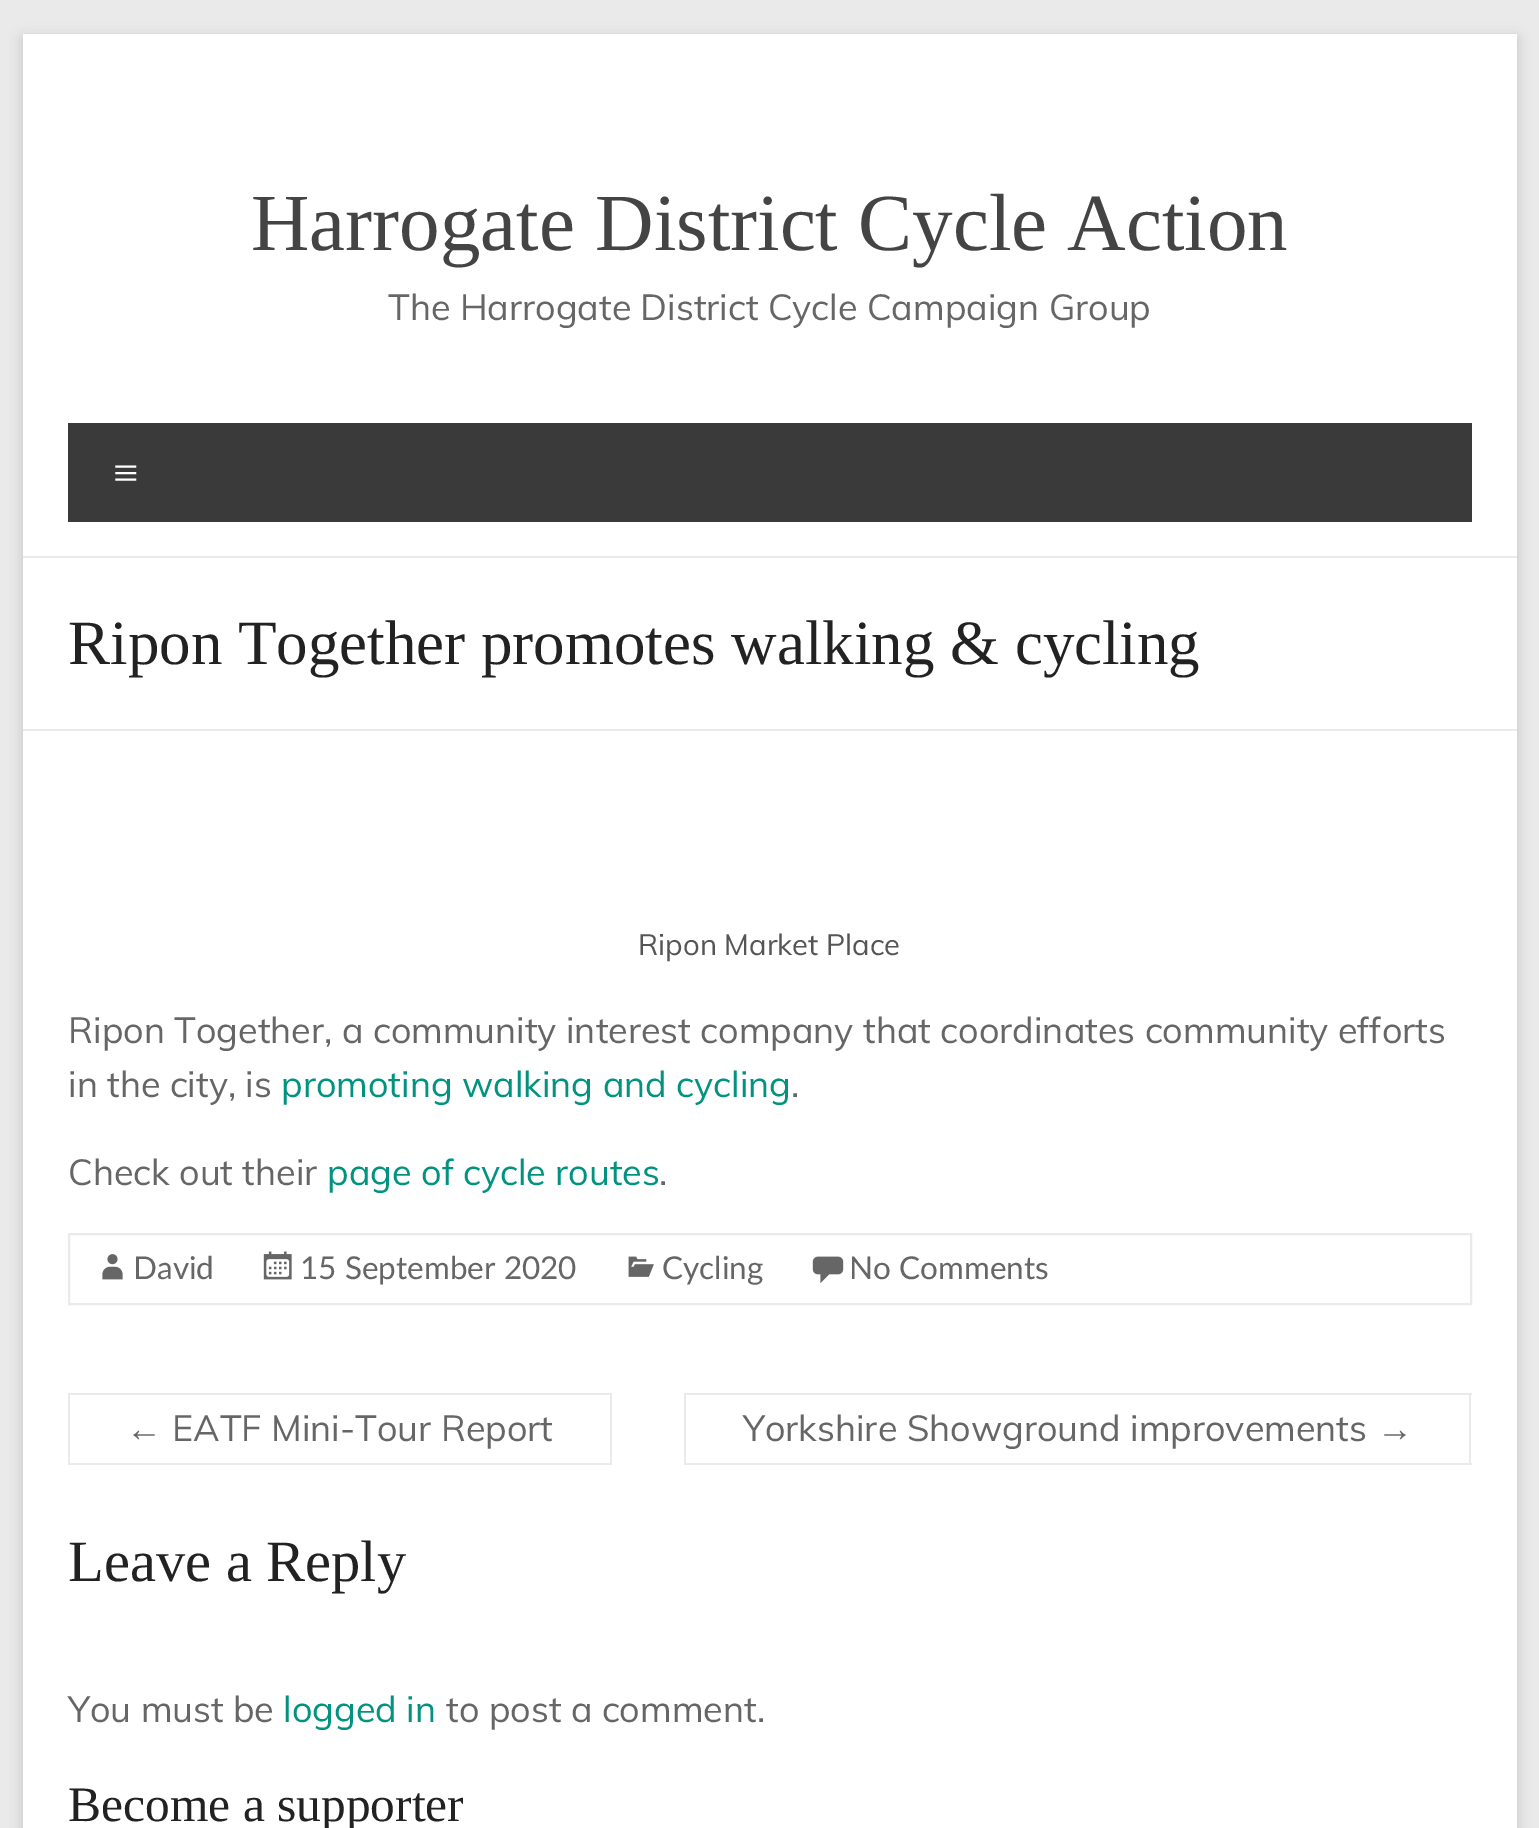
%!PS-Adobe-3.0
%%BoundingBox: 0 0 1539 1828
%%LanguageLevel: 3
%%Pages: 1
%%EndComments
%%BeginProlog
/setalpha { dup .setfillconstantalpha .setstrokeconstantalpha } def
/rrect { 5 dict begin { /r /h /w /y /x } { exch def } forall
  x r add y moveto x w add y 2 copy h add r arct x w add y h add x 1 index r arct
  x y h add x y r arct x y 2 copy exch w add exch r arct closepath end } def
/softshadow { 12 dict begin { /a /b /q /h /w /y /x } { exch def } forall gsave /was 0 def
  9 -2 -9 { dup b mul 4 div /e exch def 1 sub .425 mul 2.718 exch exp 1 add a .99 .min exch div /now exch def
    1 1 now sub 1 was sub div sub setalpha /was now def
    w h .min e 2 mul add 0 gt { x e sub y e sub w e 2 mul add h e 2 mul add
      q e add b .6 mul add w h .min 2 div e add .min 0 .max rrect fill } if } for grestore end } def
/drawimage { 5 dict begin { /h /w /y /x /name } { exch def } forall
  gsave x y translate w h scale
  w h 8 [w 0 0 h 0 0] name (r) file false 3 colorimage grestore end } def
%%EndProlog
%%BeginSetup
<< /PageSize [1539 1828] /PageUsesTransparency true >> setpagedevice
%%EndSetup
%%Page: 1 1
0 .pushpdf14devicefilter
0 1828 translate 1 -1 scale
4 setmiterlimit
0.918 setgray
0 0 1539 1828 rectfill
0.392 setgray
23 38 1494 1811 0 7 0.3 softshadow
1 setgray
23 34 1494 1794 rectfill
0.918 setgray
23 556 1494 2 rectfill
0.227 setgray
68 423 1404 99 rectfill
0.918 setgray
23 729 1494 2 rectfill
2 setlinewidth
69 1234 1402 70 rectstroke
(images/1.raw) 102 1254 21 26 drawimage
(images/2.raw) 263 1251 29 29 drawimage
(images/3.raw) 628 1256 26 21 drawimage
(images/4.raw) 812 1256 32 27 drawimage
68 1463 94 2 rectfill
68 1393 544 2 rectfill
68 1393 2 72 rectfill
610 1393 2 72 rectfill
162 1463 450 2 rectfill
684 1393 788 2 rectfill
684 1463 693 2 rectfill
684 1393 2 72 rectfill
1469 1393 2 72 rectfill
1377 1463 95 2 rectfill
/LiberationSerif-Regular [81 0 0 -81 0 0] selectfont
0.267 setgray
251 250 moveto (Harrogate District Cycle Action) show
/Muli-Regular [36 0 0 -36 0 0] selectfont
0.4 setgray
388 320 moveto (The Harrogate District Cycle Campaign Group) show
/LiberationSerif-Regular [45 0 0 -45 0 0] selectfont
1 setgray
113 488 moveto (≡) show
/LiberationSerif-Regular [63 0 0 -63 0 0] selectfont
0.133 setgray
68 664 moveto (Ripon Together promotes walking & cycling) show
/Muli-Regular [29.25 0 0 -29.25 0 0] selectfont
0.333 setgray
638 955 moveto (Ripon Market Place) show
/Muli-Regular [36 0 0 -36 0 0] selectfont
0.4 setgray
68 1043 moveto (Ripon Together, a community interest company that coordinates community efforts) show
68 1097 moveto (in the city, is) show
0.004 0.576 0.502 setrgbcolor
281 1097 moveto (promoting walking and cycling) show
0.4 setgray
791 1097 moveto (.) show
68 1185 moveto (Check out their) show
0.004 0.576 0.502 setrgbcolor
327 1185 moveto (page of cycle routes) show
0.4 setgray
659 1185 moveto (.) show
/Lato-Regular [31.5 0 0 -31.5 0 0] selectfont
133 1279 moveto (David) show
300 1279 moveto (15 September 2020) show
662 1279 moveto (Cycling) show
849 1279 moveto (No Comments) show
/LiberationSerif-Regular [36 0 0 -36 0 0] selectfont
126 1441 moveto (←) show
/Muli-Regular [36 0 0 -36 0 0] selectfont
172 1441 moveto (EATF Mini-Tour Report) show
743 1441 moveto (Yorkshire Showground improvements) show
/LiberationSerif-Regular [36 0 0 -36 0 0] selectfont
1377 1441 moveto (→) show
/LiberationSerif-Regular [58.5 0 0 -58.5 0 0] selectfont
0.133 setgray
68 1581 moveto (Leave a Reply) show
/Muli-Regular [36 0 0 -36 0 0] selectfont
0.4 setgray
68 1722 moveto (You must be) show
0.004 0.576 0.502 setrgbcolor
283 1722 moveto (logged in) show
0.4 setgray
446 1722 moveto (to post a comment.) show
/LiberationSerif-Regular [49.5 0 0 -49.5 0 0] selectfont
0.133 setgray
68 1821 moveto (Become a supporter) show
.poppdf14devicefilter showpage
%%EOF
